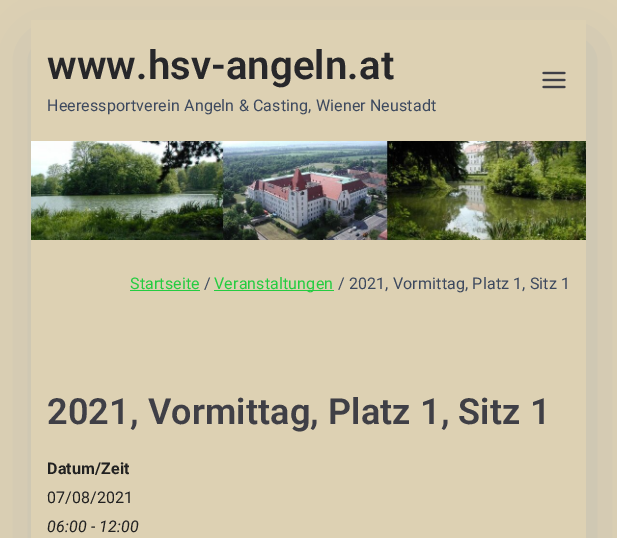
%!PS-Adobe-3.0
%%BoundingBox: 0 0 617 538
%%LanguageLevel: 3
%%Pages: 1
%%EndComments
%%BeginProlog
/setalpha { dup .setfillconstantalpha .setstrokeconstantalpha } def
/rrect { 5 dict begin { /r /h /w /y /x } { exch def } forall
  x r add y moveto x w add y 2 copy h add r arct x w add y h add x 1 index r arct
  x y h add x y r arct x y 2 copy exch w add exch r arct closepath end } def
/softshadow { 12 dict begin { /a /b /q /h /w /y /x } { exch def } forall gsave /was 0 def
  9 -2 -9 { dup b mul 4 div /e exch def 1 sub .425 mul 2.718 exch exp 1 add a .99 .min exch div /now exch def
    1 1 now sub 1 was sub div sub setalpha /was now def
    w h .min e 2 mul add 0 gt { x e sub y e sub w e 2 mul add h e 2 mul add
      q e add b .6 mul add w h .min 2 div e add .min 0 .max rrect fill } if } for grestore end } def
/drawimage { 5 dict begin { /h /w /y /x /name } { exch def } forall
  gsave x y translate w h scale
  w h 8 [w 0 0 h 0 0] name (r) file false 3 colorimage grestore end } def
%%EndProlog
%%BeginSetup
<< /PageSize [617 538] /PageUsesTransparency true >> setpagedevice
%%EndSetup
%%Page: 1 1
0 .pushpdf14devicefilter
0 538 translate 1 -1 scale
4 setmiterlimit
0.867 0.82 0.702 setrgbcolor
0 0 617 538 rectfill
0.427 0.553 0.678 setrgbcolor
35 44 555 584 0 30 0.25 softshadow
0.867 0.82 0.702 setrgbcolor
31 20 555 121 rectfill
(images/1.raw) 542 71 24 18 drawimage
(images/2.raw) 31 141 555 99 drawimage
31 240 555 298 rectfill
0.141 0.8 0.251 setrgbcolor
130 290 70 1 rectfill
214 290 120 1 rectfill
/Roboto-SemiBold [40 0 0 -40 0 0] selectfont
0.153 0.153 0.165 setrgbcolor
47 79 moveto 0.15 0 (www.hsv-angeln.at) ashow
/Roboto-Regular [16 0 0 -16 0 0] selectfont
0.239 0.286 0.369 setrgbcolor
47 111 moveto 0.15 0 (Heeressportverein Angeln & Casting, Wiener Neustadt) ashow
0.141 0.8 0.251 setrgbcolor
130 289 moveto 0.15 0 (Startseite) ashow
0.239 0.286 0.369 setrgbcolor
204 289 moveto 0.15 0 (/) ashow
0.141 0.8 0.251 setrgbcolor
214 289 moveto 0.15 0 (Veranstaltungen) ashow
0.239 0.286 0.369 setrgbcolor
338 289 moveto 0.15 0 (/ 2021, Vormittag, Platz 1, Sitz 1) ashow
/Roboto-SemiBold [36 0 0 -36 0 0] selectfont
0.247 0.247 0.275 setrgbcolor
47 424 moveto 0.15 0 (2021, Vormittag, Platz 1, Sitz 1) ashow
/Roboto-Bold [16 0 0 -16 0 0] selectfont
0.129 setgray
47 474 moveto 0.15 0 (Datum/Zeit) ashow
/Roboto-Regular [16 0 0 -16 0 0] selectfont
47 503 moveto 0.15 0 (07/08/2021) ashow
/Roboto-Italic [16 0 0 -16 0 0] selectfont
47 532 moveto 0.15 0 (06:00 - 12:00) ashow
.poppdf14devicefilter showpage
%%EOF
